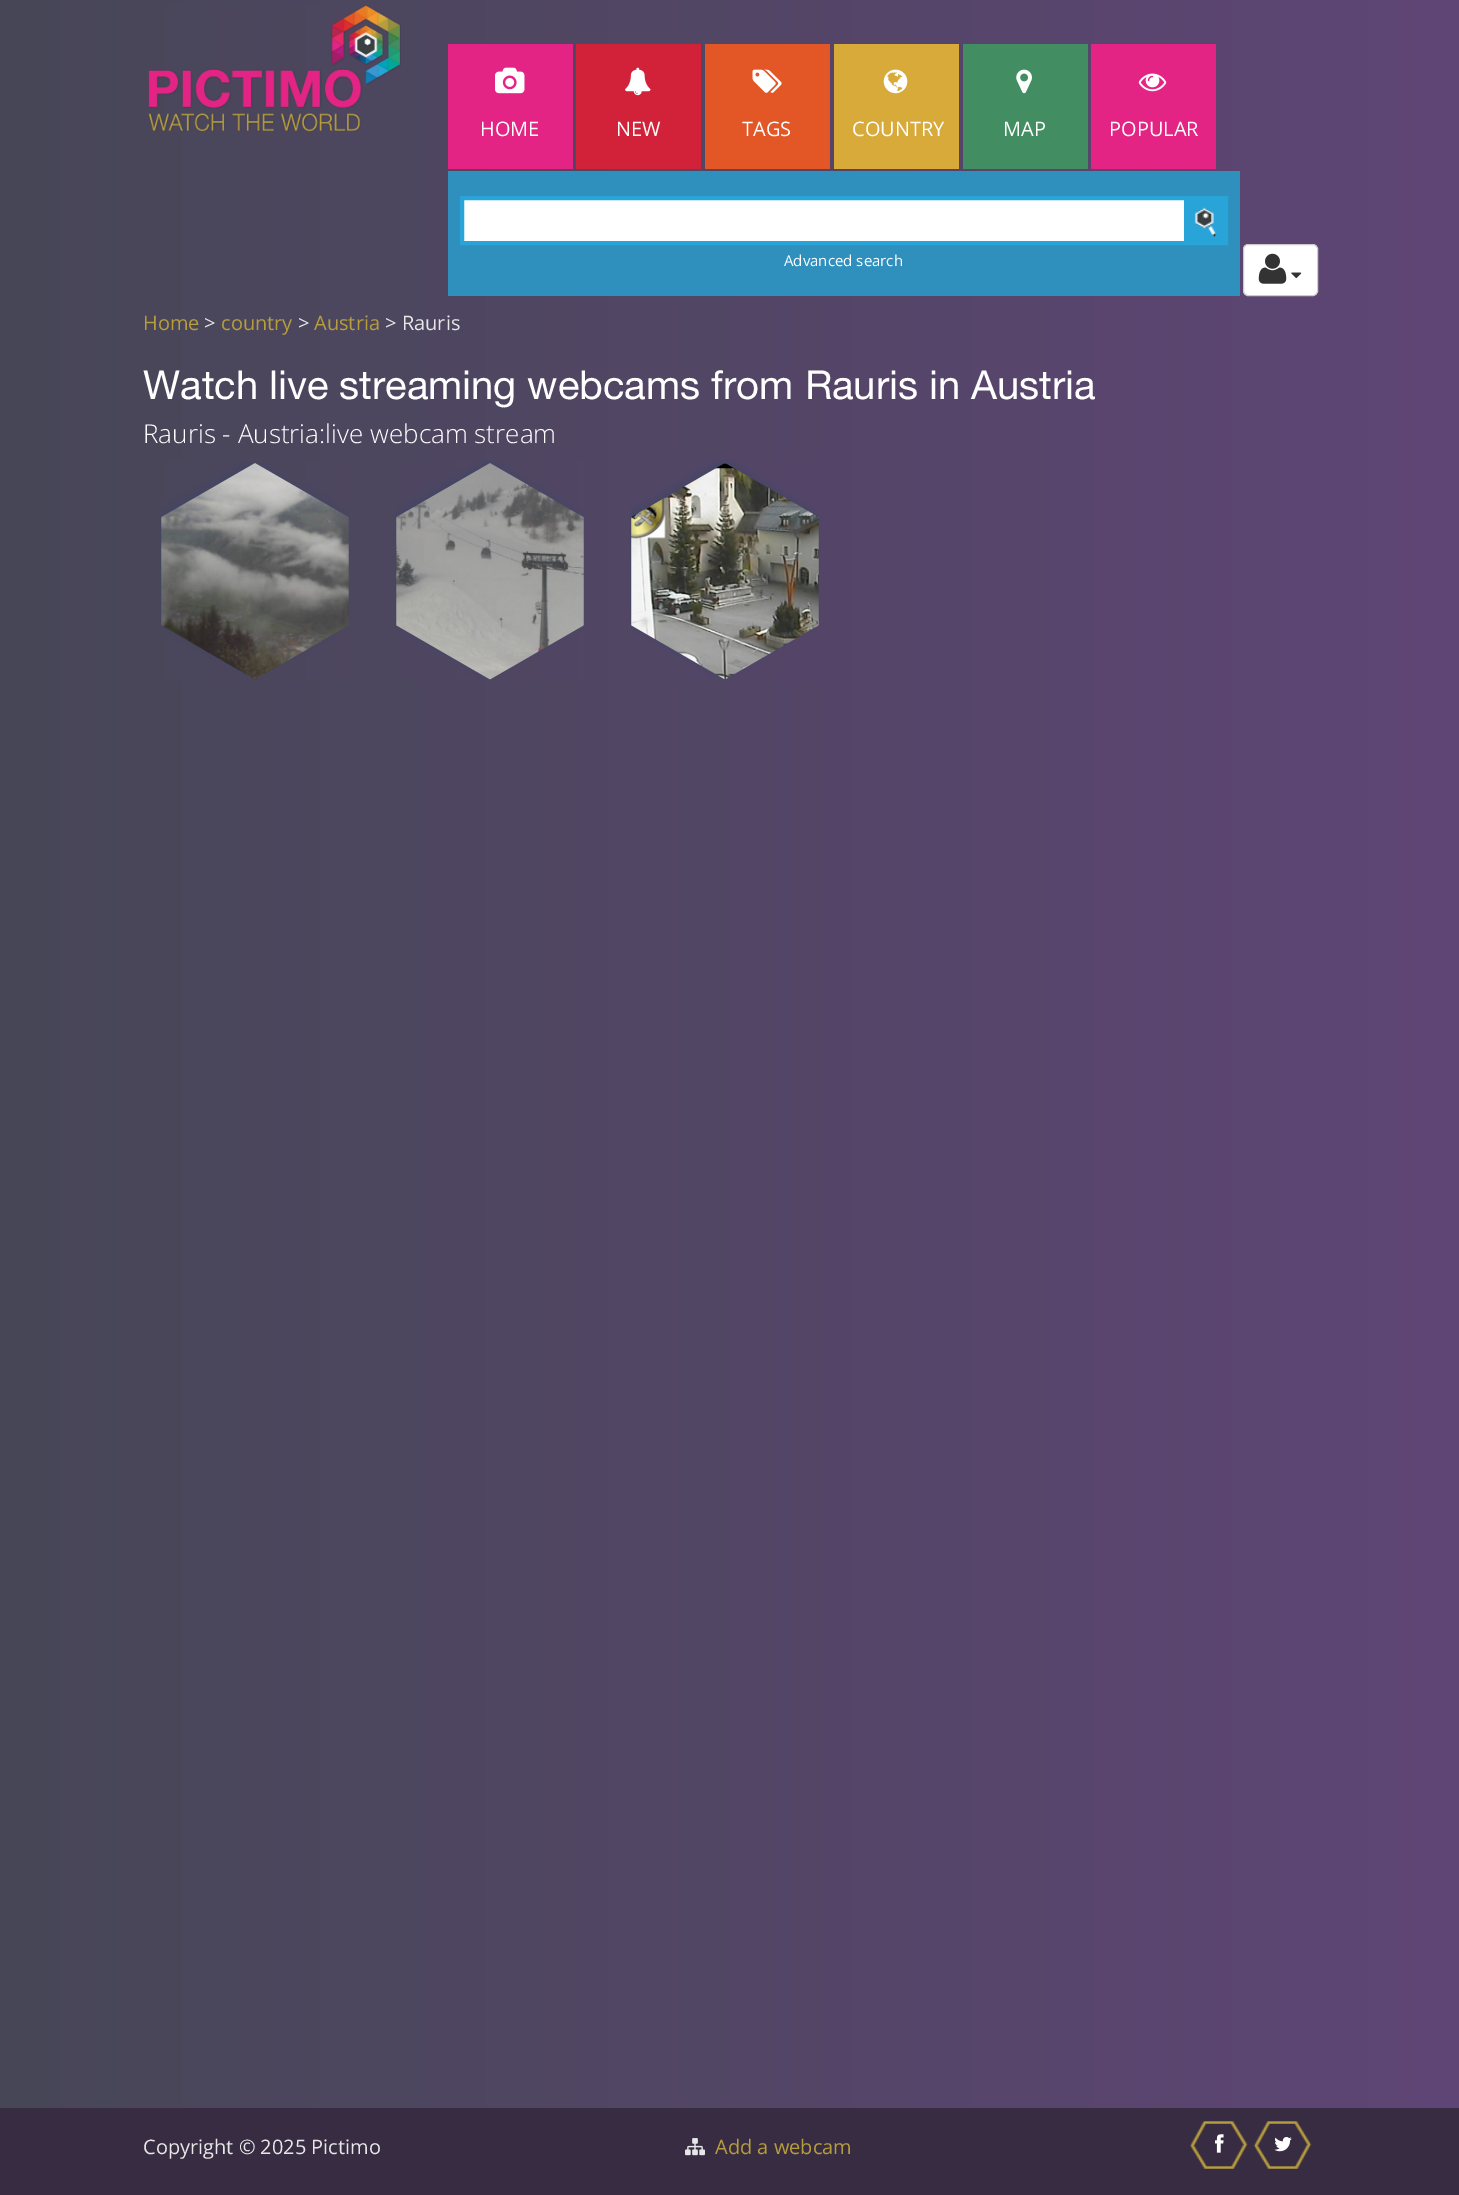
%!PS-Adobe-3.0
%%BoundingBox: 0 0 1459 2195
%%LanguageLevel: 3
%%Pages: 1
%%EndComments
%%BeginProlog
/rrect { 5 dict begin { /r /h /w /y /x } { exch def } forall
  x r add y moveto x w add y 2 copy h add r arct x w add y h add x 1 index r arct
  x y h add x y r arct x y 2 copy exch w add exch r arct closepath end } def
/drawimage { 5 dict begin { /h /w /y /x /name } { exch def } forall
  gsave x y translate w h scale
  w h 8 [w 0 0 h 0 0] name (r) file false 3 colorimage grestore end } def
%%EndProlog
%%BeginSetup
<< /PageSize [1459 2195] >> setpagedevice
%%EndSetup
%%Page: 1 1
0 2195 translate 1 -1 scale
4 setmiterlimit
1 setgray
0 0 1459 2195 rectfill
gsave newpath 0 0 moveto 1459 0 lineto 1459 2108 lineto 0 2108 lineto closepath clip newpath
<< /ShadingType 2 /ColorSpace /DeviceRGB /Coords [0 438 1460 438] /Extend [true true] /Function << /FunctionType 2 /Domain [0 1] /C0 [0.278 0.275 0.341] /C1 [0.373 0.271 0.463] /N 1 >> >> shfill grestore
(images/1.raw) 148 5 253 127 drawimage
0.89 0.141 0.518 setrgbcolor
448 44 125 125 rectfill
(images/2.raw) 495 67 30 27 drawimage
0.824 0.133 0.227 setrgbcolor
576 44 125 125 rectfill
(images/3.raw) 625 67 26 29 drawimage
0.89 0.337 0.149 setrgbcolor
705 44 125 125 rectfill
(images/4.raw) 752 69 30 24 drawimage
0.847 0.667 0.227 setrgbcolor
834 44 125 125 rectfill
(images/5.raw) 883 69 25 25 drawimage
0.259 0.557 0.384 setrgbcolor
963 44 125 125 rectfill
(images/6.raw) 1016 69 16 25 drawimage
0.89 0.141 0.518 setrgbcolor
1091 44 125 125 rectfill
(images/7.raw) 1138 73 29 19 drawimage
0.184 0.565 0.745 setrgbcolor
448 171 792 125 rectfill
1 setgray
464 200 720 41 rectfill
0.161 0.643 0.847 setrgbcolor
4 setlinewidth
462 198 764 45 rectstroke
1184 200 40 41 rectfill
(images/8.raw) 1194 207 23 31 drawimage
1 setgray
1243.5 244.5 74 51 4.5 rrect gsave fill grestore
0.8 setgray
1 setlinewidth
stroke
(images/9.raw) 1258 253 29 31 drawimage
(images/10.raw) 1291 272 11 7 drawimage
(images/11.raw) 160 461 189 219 drawimage
(images/12.raw) 395 460 189 220 drawimage
(images/13.raw) 630 459 190 221 drawimage
0.22 0.173 0.259 setrgbcolor
0 2108 1459 87 rectfill
(images/14.raw) 685 2138 20 18 drawimage
(images/15.raw) 1190 2121 58 48 drawimage
(images/16.raw) 1215 2134 9 19 drawimage
(images/17.raw) 1253 2121 59 48 drawimage
(images/18.raw) 1274 2137 18 15 drawimage
/OpenSans-Regular [20 0 0 -20 0 0] selectfont
1 setgray
480 136 moveto (HOME) show
616 136 moveto (NEW) show
742 136 moveto (TAGS) show
852 136 moveto (COUNTRY) show
1003 136 moveto (MAP) show
1109 136 moveto (POPULAR) show
/OpenSans-Regular [15 0 0 -15 0 0] selectfont
784 266 moveto (Advanced search) show
/OpenSans-Regular [20 0 0 -20 0 0] selectfont
0.714 0.616 0.243 setrgbcolor
143 330 moveto (Home) show
0.906 setgray
204 330 moveto (>) show
0.714 0.616 0.243 setrgbcolor
221 330 moveto (country) show
0.906 setgray
298 330 moveto (>) show
0.714 0.616 0.243 setrgbcolor
314 330 moveto (Austria) show
0.906 setgray
385 330 moveto (> Rauris) show
/HelveticaNeue-Regular [40 0 0 -40 0 0] selectfont
1 setgray
143 399 moveto (Watch live streaming webcams from Rauris in Austria) show
/OpenSans-Light [26 0 0 -26 0 0] selectfont
143 443 moveto (Rauris - Austria:live webcam stream) show
/OpenSans-Regular [20 0 0 -20 0 0] selectfont
0.906 setgray
143 2154 moveto (Copyright © 2025 Pictimo) show
0.714 0.616 0.243 setrgbcolor
715 2154 moveto (Add a webcam) show
showpage
%%EOF
